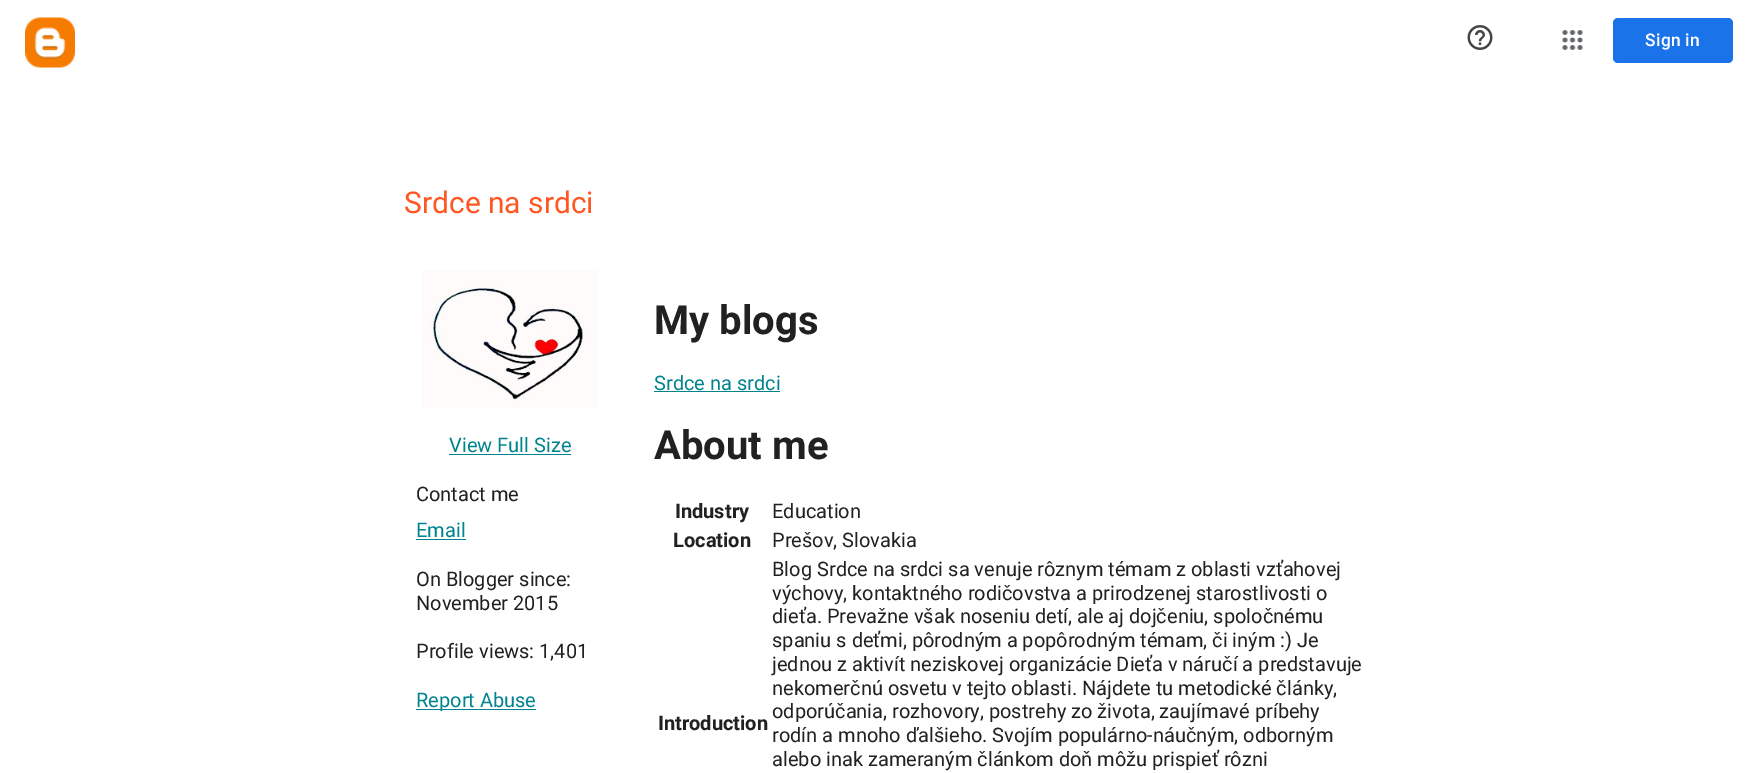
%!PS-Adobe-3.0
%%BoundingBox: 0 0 1757 773
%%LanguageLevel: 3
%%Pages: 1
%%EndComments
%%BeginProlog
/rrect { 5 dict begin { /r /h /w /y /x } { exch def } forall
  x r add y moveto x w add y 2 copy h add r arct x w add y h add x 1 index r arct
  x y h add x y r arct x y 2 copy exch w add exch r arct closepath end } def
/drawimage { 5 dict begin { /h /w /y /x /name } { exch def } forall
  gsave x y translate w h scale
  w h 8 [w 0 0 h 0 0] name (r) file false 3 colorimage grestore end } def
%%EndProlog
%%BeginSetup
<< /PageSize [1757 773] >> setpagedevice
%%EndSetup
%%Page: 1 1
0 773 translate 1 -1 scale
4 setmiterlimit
1 setgray
0 0 1757 773 rectfill
(images/1.raw) 25 17 50 51 drawimage
(images/2.raw) 1467 25 26 25 drawimage
(images/3.raw) 1562 30 21 20 drawimage
0.102 0.451 0.91 setrgbcolor
1613 18 120 45 5 rrect fill
(images/4.raw) 423 270 174 138 drawimage
0 0.514 0.561 setrgbcolor
449 454 122 1 rectfill
416 539 50 1 rectfill
416 709 120 1 rectfill
654 391 126 1 rectfill
/Roboto-Medium [17.5 0 0 -17.5 0 0] selectfont
1 setgray
1645 46 moveto 0.25 0 (Sign in) ashow
/Roboto-Regular [30 0 0 -30 0 0] selectfont
1 0.341 0.133 setrgbcolor
404 213 moveto (Srdce na srdci) show
/Roboto-Regular [20 0 0 -20 0 0] selectfont
0 0.514 0.561 setrgbcolor
449 452 moveto (View Full Size) show
0.129 setgray
416 501 moveto (Contact me) show
0 0.514 0.561 setrgbcolor
416 537 moveto (Email) show
0.129 setgray
416 586 moveto (On Blogger since:) show
416 610 moveto (November 2015) show
416 658 moveto (Profile views: 1,401) show
0 0.514 0.561 setrgbcolor
416 707 moveto (Report Abuse) show
/Roboto-Bold [40 0 0 -40 0 0] selectfont
0.129 setgray
654 334 moveto (My blogs) show
/Roboto-Regular [20 0 0 -20 0 0] selectfont
0 0.514 0.561 setrgbcolor
654 390 moveto (Srdce na srdci) show
/Roboto-Bold [40 0 0 -40 0 0] selectfont
0.129 setgray
654 459 moveto (About me) show
/Roboto-Bold [20 0 0 -20 0 0] selectfont
675 518 moveto (Industry) show
/Roboto-Regular [20 0 0 -20 0 0] selectfont
772 518 moveto (Education) show
/Roboto-Bold [20 0 0 -20 0 0] selectfont
673 547 moveto (Location) show
/Roboto-Regular [20 0 0 -20 0 0] selectfont
772 547 moveto (Prešov, Slovakia) show
/Roboto-Bold [20 0 0 -20 0 0] selectfont
658 730 moveto (Introduction) show
/Roboto-Regular [20 0 0 -20 0 0] selectfont
772 576 moveto (Blog Srdce na srdci sa venuje rôznym témam z oblasti vzťahovej) show
772 600 moveto (výchovy, kontaktného rodičovstva a prirodzenej starostlivosti o) show
772 623 moveto (dieťa. Prevažne však noseniu detí, ale aj dojčeniu, spoločnému) show
772 647 moveto (spaniu s deťmi, pôrodným a popôrodným témam, či iným :\) Je) show
772 671 moveto (jednou z aktivít neziskovej organizácie Dieťa v náručí a predstavuje) show
772 695 moveto (nekomerčnú osvetu v tejto oblasti. Nájdete tu metodické články,) show
772 718 moveto (odporúčania, rozhovory, postrehy zo života, zaujímavé príbehy) show
772 742 moveto (rodín a mnoho ďalšieho. Svojím populárno-náučným, odborným) show
772 766 moveto (alebo inak zameraným článkom doň môžu prispieť rôzni) show
showpage
%%EOF
